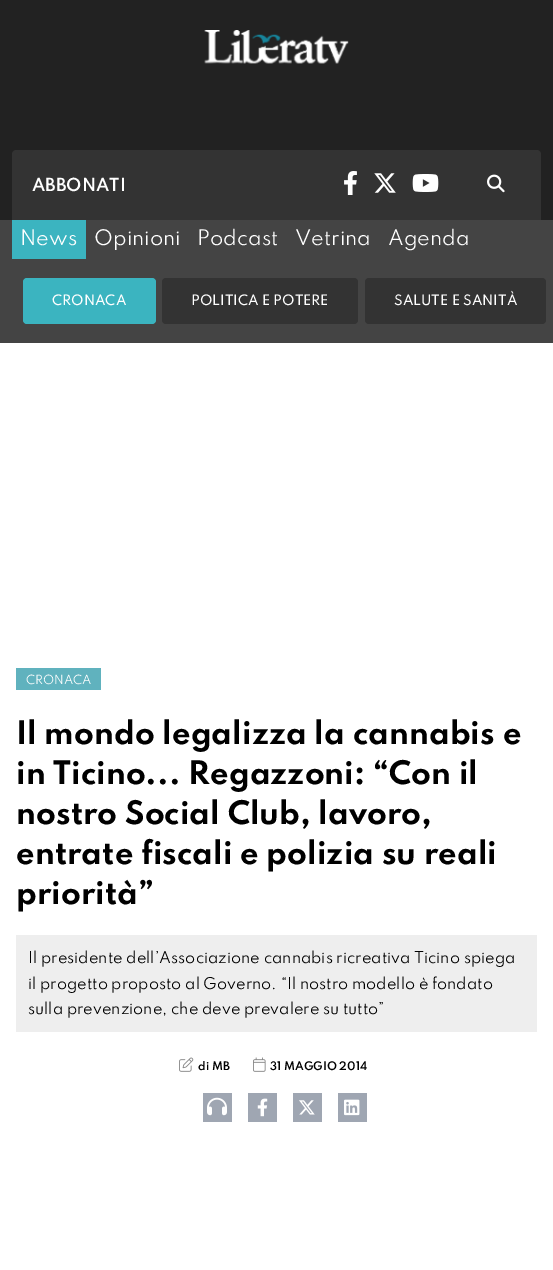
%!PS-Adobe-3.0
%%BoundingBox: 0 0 553 1270
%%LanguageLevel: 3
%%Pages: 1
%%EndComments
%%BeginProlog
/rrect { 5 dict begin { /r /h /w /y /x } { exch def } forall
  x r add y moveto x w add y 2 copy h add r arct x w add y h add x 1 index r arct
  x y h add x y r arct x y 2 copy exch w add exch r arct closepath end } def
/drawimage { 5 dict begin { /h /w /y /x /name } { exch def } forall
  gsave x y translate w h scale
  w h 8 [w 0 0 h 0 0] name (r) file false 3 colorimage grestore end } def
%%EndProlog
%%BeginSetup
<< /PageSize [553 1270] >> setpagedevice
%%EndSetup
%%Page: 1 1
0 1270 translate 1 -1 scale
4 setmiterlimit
1 setgray
0 0 553 1270 rectfill
0.133 setgray
0 0 553 220 rectfill
(images/1.raw) 204 30 145 34 drawimage
0.2 setgray
newpath 16 150 moveto 537 150 lineto 539 150 541 152 541 154 curveto 541 220 lineto 12 220 lineto 12 154 lineto 12 152 14 150 16 150 curveto closepath fill
(images/2.raw) 344 171 13 24 drawimage
(images/3.raw) 374 173 22 20 drawimage
(images/4.raw) 412 174 27 18 drawimage
(images/5.raw) 487 174 18 19 drawimage
0.267 setgray
0 220 553 123 rectfill
0.231 0.706 0.753 setrgbcolor
12 220 74 39 rectfill
23 278 133 46 4 rrect fill
0.2 setgray
162 278 196 46 4 rrect fill
365 278 181 46 4 rrect fill
0.376 0.698 0.745 setrgbcolor
16 668 85 22 rectfill
0.933 setgray
16 935 521 97 rectfill
(images/6.raw) 179 1057 15 15 drawimage
(images/7.raw) 253 1057 13 15 drawimage
0.624 0.651 0.698 setrgbcolor
203 1093 29 29 rectfill
(images/8.raw) 207 1097 20 19 drawimage
248 1093 29 29 rectfill
(images/9.raw) 257 1098 11 19 drawimage
293 1093 29 29 rectfill
(images/10.raw) 299 1100 16 15 drawimage
338 1093 29 29 rectfill
(images/11.raw) 344 1099 16 17 drawimage
/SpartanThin-SemiBold [16 0 0 -16 0 0] selectfont
1 setgray
32 191 moveto (ABBONATI) show
/SpartanThin-Regular [19 0 0 -19 0 0] selectfont
20 245 moveto (News) show
94 245 moveto (Opinioni) show
197 245 moveto (Podcast) show
295 245 moveto (Vetrina) show
388 245 moveto (Agenda) show
/SpartanThin-Medium [12.75 0 0 -12.75 0 0] selectfont
52 305 moveto (CRONACA) show
191 305 moveto (POLITICA E POTERE) show
394 305 moveto (SALUTE E SANITÀ) show
/SpartanThin-Regular [11.25 0 0 -11.25 0 0] selectfont
26 684 moveto (CRONACA) show
/SpartanThin-Bold [28.75 0 0 -28.75 0 0] selectfont
0 setgray
16 744 moveto (Il mondo legalizza la cannabis e) show
16 784 moveto (in Ticino... Regazzoni: “Con il) show
16 824 moveto (nostro Social Club, lavoro,) show
16 864 moveto (entrate fiscali e polizia su reali) show
16 904 moveto (priorità”) show
/SpartanThin-Regular [14.4 0 0 -14.4 0 0] selectfont
28 963 moveto (Il presidente dell’Associazione cannabis ricreativa Ticino spiega) show
28 989 moveto (il progetto proposto al Governo. “Il nostro modello è fondato) show
28 1014 moveto (sulla prevenzione, che deve prevalere su tutto”) show
/SpartanThin-SemiBold [10.5 0 0 -10.5 0 0] selectfont
198 1070 moveto (di MB) show
270 1070 moveto (31 MAGGIO 2014) show
showpage
%%EOF
